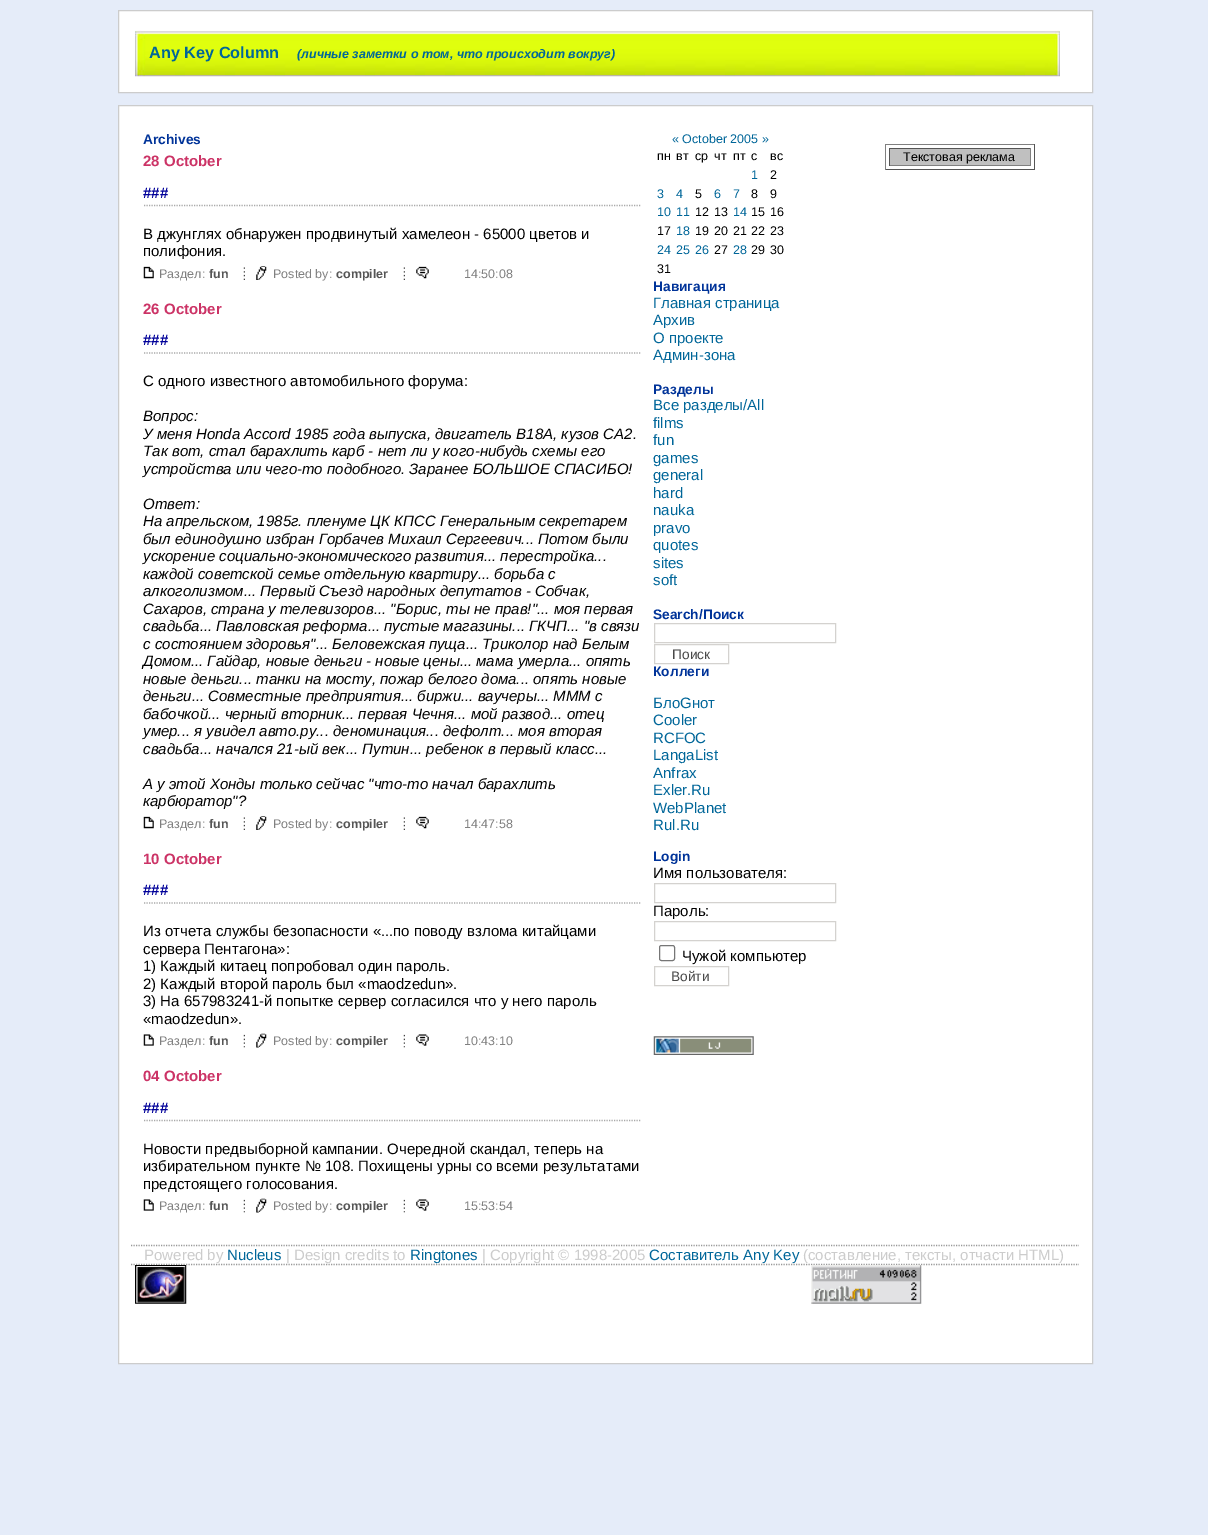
%!PS-Adobe-3.0
%%BoundingBox: 0 0 1208 1535
%%LanguageLevel: 3
%%Pages: 1
%%EndComments
%%BeginProlog
/rrect { 5 dict begin { /r /h /w /y /x } { exch def } forall
  x r add y moveto x w add y 2 copy h add r arct x w add y h add x 1 index r arct
  x y h add x y r arct x y 2 copy exch w add exch r arct closepath end } def
/drawimage { 5 dict begin { /h /w /y /x /name } { exch def } forall
  gsave x y translate w h scale
  w h 8 [w 0 0 h 0 0] name (r) file false 3 colorimage grestore end } def
%%EndProlog
%%BeginSetup
<< /PageSize [1208 1535] >> setpagedevice
%%EndSetup
%%Page: 1 1
0 1535 translate 1 -1 scale
4 setmiterlimit
0.898 0.925 0.976 setrgbcolor
0 0 1208 1535 rectfill
1 setgray
newpath 118.5 10.5 moveto 1092.5 10.5 lineto 1092.5 92.5 lineto 118.5 92.5 lineto closepath gsave fill grestore
0.8 setgray
stroke
(images/1.raw) 135 30 925 47 drawimage
1 setgray
newpath 118.5 105.5 moveto 1092.5 105.5 lineto 1092.5 1363.5 lineto 118.5 1363.5 lineto closepath gsave fill grestore
0.8 setgray
stroke
0.663 setgray
1.2 setlinewidth
[1.25 1.25] 0 setdash
newpath 144 205.5 moveto 641 205.5 lineto stroke
(images/2.raw) 143 266 11 13 drawimage
(images/3.raw) 243 267 2 13 drawimage
(images/4.raw) 256 266 11 14 drawimage
(images/3.raw) 403 267 2 13 drawimage
(images/5.raw) 416 266 13 13 drawimage
newpath 144 353 moveto 641 353 lineto stroke
(images/2.raw) 143 816 11 13 drawimage
(images/6.raw) 243 817 2 13 drawimage
(images/4.raw) 256 816 11 14 drawimage
(images/6.raw) 403 817 2 13 drawimage
(images/5.raw) 416 816 13 13 drawimage
newpath 144 903 moveto 641 903 lineto stroke
(images/7.raw) 143 1034 11 12 drawimage
(images/8.raw) 243 1034 2 14 drawimage
(images/9.raw) 256 1033 11 15 drawimage
(images/8.raw) 403 1034 2 14 drawimage
(images/10.raw) 416 1034 13 12 drawimage
newpath 144 1120.5 moveto 641 1120.5 lineto stroke
(images/7.raw) 143 1199 11 12 drawimage
(images/8.raw) 243 1199 2 14 drawimage
(images/9.raw) 256 1198 11 15 drawimage
(images/8.raw) 403 1199 2 14 drawimage
(images/10.raw) 416 1199 13 12 drawimage
0.831 0.824 0.812 setrgbcolor
1 setlinewidth
[] 0 setdash
654.5 623.5 181 19 rectstroke
654.5 644.5 74 19 rectstroke
654.5 883.5 181 19 rectstroke
654.5 921.5 181 19 rectstroke
0.463 setgray
659.5 945.5 15 15 2 rrect stroke
0.831 0.824 0.812 setrgbcolor
654.5 966.5 74 19 rectstroke
(images/11.raw) 653 1036 101 19 drawimage
0.502 setgray
885 144 150 1 rectfill
0.333 setgray
1034 144 1 26 rectfill
885 169 150 1 rectfill
0.502 setgray
885 144 1 26 rectfill
0.753 setgray
890 149 140 16 rectfill
0.333 setgray
889 148 142 1 rectfill
0.502 setgray
1030 148 1 18 rectfill
889 165 142 1 rectfill
0.333 setgray
889 148 1 18 rectfill
0.6 setgray
1.2 setlinewidth
[1.25 1.25] 0 setdash
newpath 131 1245.5 moveto 1079 1245.5 lineto stroke
newpath 131 1264.5 moveto 1079 1264.5 lineto stroke
(images/12.raw) 135 1265 52 39 drawimage
(images/13.raw) 811 1265 111 39 drawimage
/LiberationSans-Bold [16.25 0 0 -16.25 0 0] selectfont
0 0.4 0.6 setrgbcolor
149 58 moveto (Any Key Column) show
/LiberationSans-BoldItalic [12.5 0 0 -12.5 0 0] selectfont
297 58 moveto (\(личные заметки о том, что происходит вокруг\)) show
/LiberationSans-Bold [13.75 0 0 -13.75 0 0] selectfont
0 0.2 0.6 setrgbcolor
143 144 moveto (Archives) show
/LiberationSans-Bold [15 0 0 -15 0 0] selectfont
0.8 0.2 0.4 setrgbcolor
143 166 moveto (28 October) show
0 0 0.6 setrgbcolor
143 198 moveto (###) show
/LiberationSans-Regular [15 0 0 -15 0 0] selectfont
0 setgray
143 239 moveto (В джунглях обнаружен продвинутый хамелеон - 65000 цветов и) show
143 256 moveto (полифония.) show
/LiberationSans-Regular [12.5 0 0 -12.5 0 0] selectfont
0.502 setgray
159 278 moveto (Раздел:) show
/LiberationSans-Bold [12.5 0 0 -12.5 0 0] selectfont
0.333 setgray
209 278 moveto (fun) show
/LiberationSans-Regular [12.5 0 0 -12.5 0 0] selectfont
0.502 setgray
273 278 moveto (Posted by:) show
/LiberationSans-Bold [12.5 0 0 -12.5 0 0] selectfont
0.333 setgray
336 278 moveto (compiler) show
/LiberationSans-Regular [12.5 0 0 -12.5 0 0] selectfont
0.502 setgray
464 278 moveto (14:50:08) show
/LiberationSans-Bold [15 0 0 -15 0 0] selectfont
0.8 0.2 0.4 setrgbcolor
143 314 moveto (26 October) show
0 0 0.6 setrgbcolor
143 345 moveto (###) show
/LiberationSans-Regular [15 0 0 -15 0 0] selectfont
0 setgray
143 386 moveto (C одного известного автомобильного форума:) show
/LiberationSans-Italic [15 0 0 -15 0 0] selectfont
143 421 moveto (Вопрос:) show
143 439 moveto (У меня Honda Accord 1985 года выпуска, двигатель B18A, кузов СА2.) show
143 456 moveto (Так вот, стал барахлить карб - нет ли у кого-нибудь схемы его) show
143 474 moveto (устройства или чего-то подобного. Заранее БОЛЬШОЕ СПАСИБО!) show
143 509 moveto (Ответ:) show
143 526 moveto (На апрельском, 1985г. пленуме ЦК КПСС Генеральным секретарем) show
143 544 moveto (был единодушно избран Горбачев Михаил Сергеевич... Потом были) show
143 561 moveto (ускорение социально-экономического развития... перестройка...) show
143 579 moveto (каждой советской семье отдельную квартиру... борьба с) show
143 596 moveto (алкоголизмом... Первый Съезд народных депутатов - Собчак,) show
143 614 moveto (Сахаров, страна у телевизоров... "Борис, ты не прав!"... моя первая) show
143 631 moveto (свадьба... Павловская реформа... пустые магазины... ГКЧП... "в связи) show
143 649 moveto (с состоянием здоровья"... Беловежская пуща... Триколор над Белым) show
143 666 moveto (Домом... Гайдар, новые деньги - новые цены... мама умерла... опять) show
143 684 moveto (новые деньги... танки на мосту, пожар белого дома... опять новые) show
143 701 moveto (деньги... Совместные предприятия... биржи... ваучеры... МММ с) show
143 719 moveto (бабочкой... черный вторник... первая Чечня... мой развод... отец) show
143 736 moveto (умер... я увидел авто.ру... деноминация... дефолт... моя вторая) show
143 754 moveto (свадьба... начался 21-ый век... Путин... ребенок в первый класс...) show
143 789 moveto (А у этой Хонды только сейчас "что-то начал барахлить) show
143 806 moveto (карбюратор"?) show
/LiberationSans-Regular [12.5 0 0 -12.5 0 0] selectfont
0.502 setgray
159 828 moveto (Раздел:) show
/LiberationSans-Bold [12.5 0 0 -12.5 0 0] selectfont
0.333 setgray
209 828 moveto (fun) show
/LiberationSans-Regular [12.5 0 0 -12.5 0 0] selectfont
0.502 setgray
273 828 moveto (Posted by:) show
/LiberationSans-Bold [12.5 0 0 -12.5 0 0] selectfont
0.333 setgray
336 828 moveto (compiler) show
/LiberationSans-Regular [12.5 0 0 -12.5 0 0] selectfont
0.502 setgray
464 828 moveto (14:47:58) show
/LiberationSans-Bold [15 0 0 -15 0 0] selectfont
0.8 0.2 0.4 setrgbcolor
143 864 moveto (10 October) show
0 0 0.6 setrgbcolor
143 895 moveto (###) show
/LiberationSans-Regular [15 0 0 -15 0 0] selectfont
0 setgray
143 936 moveto (Из отчета службы безопасности «...по поводу взлома китайцами) show
143 954 moveto (сервера Пентагона»:) show
143 971 moveto (1\) Каждый китаец попробовал один пароль.) show
143 989 moveto (2\) Каждый второй пароль был «maodzedun».) show
143 1006 moveto (3\) На 657983241-й попытке сервер согласился что у него пароль) show
143 1024 moveto («maodzedun».) show
/LiberationSans-Regular [12.5 0 0 -12.5 0 0] selectfont
0.502 setgray
159 1045 moveto (Раздел:) show
/LiberationSans-Bold [12.5 0 0 -12.5 0 0] selectfont
0.333 setgray
209 1045 moveto (fun) show
/LiberationSans-Regular [12.5 0 0 -12.5 0 0] selectfont
0.502 setgray
273 1045 moveto (Posted by:) show
/LiberationSans-Bold [12.5 0 0 -12.5 0 0] selectfont
0.333 setgray
336 1045 moveto (compiler) show
/LiberationSans-Regular [12.5 0 0 -12.5 0 0] selectfont
0.502 setgray
464 1045 moveto (10:43:10) show
/LiberationSans-Bold [15 0 0 -15 0 0] selectfont
0.8 0.2 0.4 setrgbcolor
143 1081 moveto (04 October) show
0 0 0.6 setrgbcolor
143 1113 moveto (###) show
/LiberationSans-Regular [15 0 0 -15 0 0] selectfont
0 setgray
143 1154 moveto (Новости предвыборной кампании. Очередной скандал, теперь на) show
143 1171 moveto (избирательном пункте № 108. Похищены урны со всеми результатами) show
143 1189 moveto (предстоящего голосования.) show
/LiberationSans-Regular [12.5 0 0 -12.5 0 0] selectfont
0.502 setgray
159 1210 moveto (Раздел:) show
/LiberationSans-Bold [12.5 0 0 -12.5 0 0] selectfont
0.333 setgray
209 1210 moveto (fun) show
/LiberationSans-Regular [12.5 0 0 -12.5 0 0] selectfont
0.502 setgray
273 1210 moveto (Posted by:) show
/LiberationSans-Bold [12.5 0 0 -12.5 0 0] selectfont
0.333 setgray
336 1210 moveto (compiler) show
/LiberationSans-Regular [12.5 0 0 -12.5 0 0] selectfont
0.502 setgray
464 1210 moveto (15:53:54) show
0 0.4 0.6 setrgbcolor
672 143 moveto (« October 2005 ») show
0 setgray
657 160 moveto (пн) show
676 160 moveto (вт) show
695 160 moveto (ср) show
714 160 moveto (чт) show
733 160 moveto (пт) show
751 160 moveto (с) show
770 160 moveto (вс) show
0 0.4 0.6 setrgbcolor
751 179 moveto (1) show
0 setgray
770 179 moveto (2) show
0 0.4 0.6 setrgbcolor
657 198 moveto (3) show
676 198 moveto (4) show
0 setgray
695 198 moveto (5) show
0 0.4 0.6 setrgbcolor
714 198 moveto (6) show
733 198 moveto (7) show
0 setgray
751 198 moveto (8) show
770 198 moveto (9) show
0 0.4 0.6 setrgbcolor
657 216 moveto (10) show
676 216 moveto (11) show
0 setgray
695 216 moveto (12) show
714 216 moveto (13) show
0 0.4 0.6 setrgbcolor
733 216 moveto (14) show
0 setgray
751 216 moveto (15) show
770 216 moveto (16) show
657 235 moveto (17) show
0 0.4 0.6 setrgbcolor
676 235 moveto (18) show
0 setgray
695 235 moveto (19) show
714 235 moveto (20) show
733 235 moveto (21) show
751 235 moveto (22) show
770 235 moveto (23) show
0 0.4 0.6 setrgbcolor
657 254 moveto (24) show
676 254 moveto (25) show
695 254 moveto (26) show
0 setgray
714 254 moveto (27) show
0 0.4 0.6 setrgbcolor
733 254 moveto (28) show
0 setgray
751 254 moveto (29) show
770 254 moveto (30) show
657 273 moveto (31) show
/LiberationSans-Bold [13.75 0 0 -13.75 0 0] selectfont
0 0.2 0.6 setrgbcolor
653 291 moveto (Навигация) show
/LiberationSans-Regular [15 0 0 -15 0 0] selectfont
0 0.4 0.6 setrgbcolor
653 308 moveto (Главная страница) show
653 325 moveto (Архив) show
653 343 moveto (О проекте) show
653 360 moveto (Админ-зона) show
/LiberationSans-Bold [13.75 0 0 -13.75 0 0] selectfont
0 0.2 0.6 setrgbcolor
653 394 moveto (Разделы) show
/LiberationSans-Regular [15 0 0 -15 0 0] selectfont
0 0.4 0.6 setrgbcolor
653 410 moveto (Все разделы/All) show
653 428 moveto (films) show
653 445 moveto (fun) show
653 463 moveto (games) show
653 480 moveto (general) show
653 498 moveto (hard) show
653 515 moveto (nauka) show
653 533 moveto (pravo) show
653 550 moveto (quotes) show
653 568 moveto (sites) show
653 585 moveto (soft) show
/LiberationSans-Bold [13.75 0 0 -13.75 0 0] selectfont
0 0.2 0.6 setrgbcolor
653 619 moveto (Search/Поиск) show
/LiberationSans-Regular [13.75 0 0 -13.75 0 0] selectfont
0.286 setgray
672 659 moveto (Поиск) show
/LiberationSans-Bold [13.75 0 0 -13.75 0 0] selectfont
0 0.2 0.6 setrgbcolor
653 676 moveto (Коллеги) show
/LiberationSans-Regular [15 0 0 -15 0 0] selectfont
0 0.4 0.6 setrgbcolor
653 708 moveto (БлоGнот) show
653 725 moveto (Cooler) show
653 743 moveto (RCFOC) show
653 760 moveto (LangaList) show
653 778 moveto (Anfrax) show
653 795 moveto (Exler.Ru) show
653 813 moveto (WebPlanet) show
653 830 moveto (Rul.Ru) show
/LiberationSans-Bold [13.75 0 0 -13.75 0 0] selectfont
0 0.2 0.6 setrgbcolor
653 861 moveto (Login) show
/LiberationSans-Regular [15 0 0 -15 0 0] selectfont
0 setgray
653 878 moveto (Имя пользователя:) show
653 916 moveto (Пароль:) show
682 961 moveto (Чужой компьютер) show
/LiberationSans-Regular [13.75 0 0 -13.75 0 0] selectfont
0.286 setgray
671 981 moveto (Войти) show
/LiberationSans-Regular [12.5 0 0 -12.5 0 0] selectfont
0 setgray
903 161 moveto (Текстовая реклама) show
/LiberationSans-Regular [15 0 0 -15 0 0] selectfont
0.8 setgray
144 1260 moveto (Powered by) show
0 0.4 0.6 setrgbcolor
227 1260 moveto (Nucleus) show
0.8 setgray
286 1260 moveto (| Design credits to) show
0 0.4 0.6 setrgbcolor
410 1260 moveto (Ringtones) show
0.8 setgray
482 1260 moveto (| Copyright © 1998-2005) show
0 0.4 0.6 setrgbcolor
649 1260 moveto (Составитель Any Key) show
0.8 setgray
803 1260 moveto (\(составление, тексты, отчасти HTML\)) show
showpage
%%EOF
